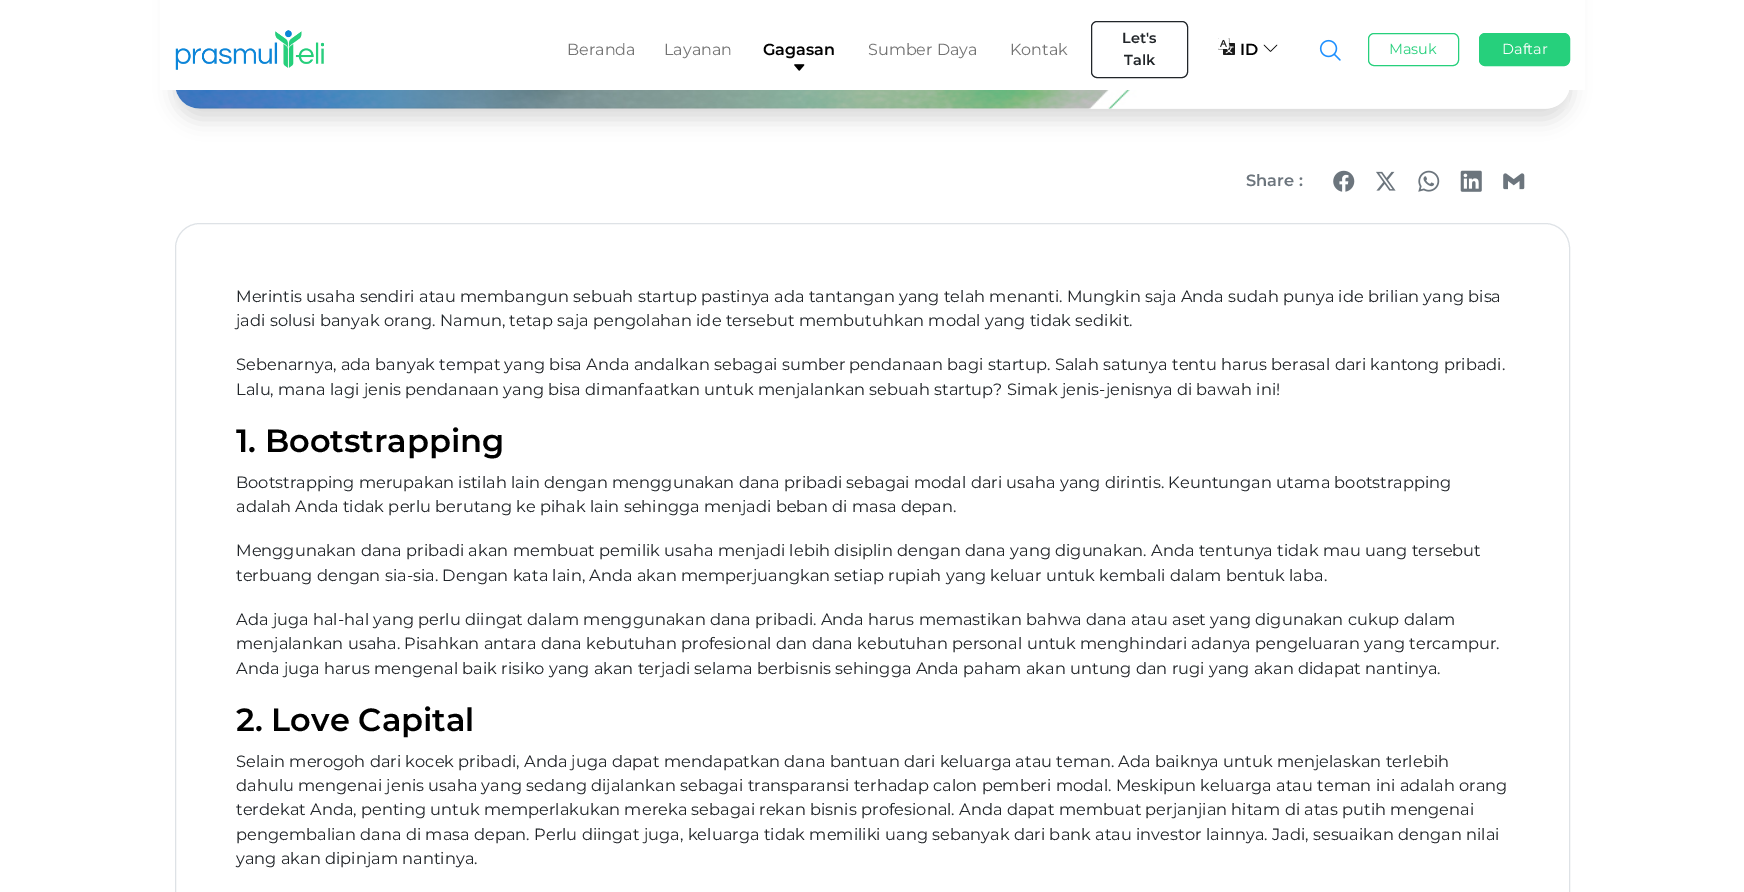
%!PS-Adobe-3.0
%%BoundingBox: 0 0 1744 892
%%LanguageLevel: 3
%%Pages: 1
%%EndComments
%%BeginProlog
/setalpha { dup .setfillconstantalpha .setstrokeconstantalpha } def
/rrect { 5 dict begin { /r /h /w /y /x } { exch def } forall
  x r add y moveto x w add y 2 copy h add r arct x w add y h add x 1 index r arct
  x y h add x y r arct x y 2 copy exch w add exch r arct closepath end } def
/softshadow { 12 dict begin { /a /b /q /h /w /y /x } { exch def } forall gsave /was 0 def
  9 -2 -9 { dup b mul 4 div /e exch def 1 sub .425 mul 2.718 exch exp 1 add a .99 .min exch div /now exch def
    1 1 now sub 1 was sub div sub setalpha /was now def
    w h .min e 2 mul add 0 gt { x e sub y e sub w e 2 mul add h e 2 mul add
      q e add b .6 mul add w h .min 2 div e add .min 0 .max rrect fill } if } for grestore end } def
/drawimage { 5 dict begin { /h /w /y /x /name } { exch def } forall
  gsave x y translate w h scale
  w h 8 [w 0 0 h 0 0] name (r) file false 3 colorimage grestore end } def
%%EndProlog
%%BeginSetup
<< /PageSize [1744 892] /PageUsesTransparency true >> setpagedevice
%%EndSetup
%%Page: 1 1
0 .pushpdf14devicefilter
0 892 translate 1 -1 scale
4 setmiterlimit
1 setgray
0 0 1744 892 rectfill
0 setgray
175 -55 1395 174 25 10 0.15 softshadow
1 setgray
160 0 1425 90 rectfill
(images/1.raw) 175 30 149 40 drawimage
(images/2.raw) 794 64 11 7 drawimage
0.129 0.145 0.161 setrgbcolor
1091.5 21.5 96 56 5.5 rrect stroke
(images/3.raw) 1218 38 17 17 drawimage
0 setgray
0.5 setlinewidth
1 setlinecap
1 setlinejoin
newpath 1264 45 moveto 1270.5 51.5 lineto 1277 45 lineto stroke
(images/4.raw) 1319 39 22 22 drawimage
0.149 0.816 0.486 setrgbcolor
1 setlinewidth
0 setlinecap
0 setlinejoin
1368.5 33.5 90 32 5.5 rrect stroke
1479.5 33.5 90 32 5.5 rrect gsave fill grestore
stroke
(images/5.raw) 175 90 1394 19 drawimage
(images/6.raw) 1333 170 22 22 drawimage
(images/7.raw) 1376 171 20 20 drawimage
(images/8.raw) 1418 170 22 22 drawimage
(images/9.raw) 1460 170 22 22 drawimage
(images/10.raw) 1503 173 22 17 drawimage
0.871 0.886 0.902 setrgbcolor
175.5 223.5 1394 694 24.5 rrect stroke
/Montserrat-Regular [16 0 0 -16 0 0] selectfont
0.451 setgray
567 55 moveto (Beranda) show
664 55 moveto (Layanan) show
/Montserrat-SemiBold [16 0 0 -16 0 0] selectfont
0 setgray
763 55 moveto (Gagasan) show
/Montserrat-Regular [16 0 0 -16 0 0] selectfont
0.451 setgray
868 55 moveto (Sumber Daya) show
1010 55 moveto (Kontak) show
/Montserrat-SemiBold [14.5 0 0 -14.5 0 0] selectfont
0.129 0.145 0.161 setrgbcolor
1122 43 moveto (Let's) show
1124 65 moveto (Talk) show
/Montserrat-SemiBold [16 0 0 -16 0 0] selectfont
0 setgray
1240 55 moveto (ID) show
/Montserrat-Regular [14.5 0 0 -14.5 0 0] selectfont
0.149 0.816 0.486 setrgbcolor
1389 54 moveto (Masuk) show
1 setgray
1502 54 moveto (Daftar) show
/Montserrat-SemiBold [16.25 0 0 -16.25 0 0] selectfont
0.424 0.459 0.49 setrgbcolor
1246 186 moveto (Share :) show
/Montserrat-Regular [16.25 0 0 -16.25 0 0] selectfont
0.129 0.145 0.161 setrgbcolor
236 302 moveto (Merintis usaha sendiri atau membangun sebuah startup pastinya ada tantangan yang telah menanti. Mungkin saja Anda sudah punya ide brilian yang bisa) show
236 326 moveto (jadi solusi banyak orang. Namun, tetap saja pengolahan ide tersebut membutuhkan modal yang tidak sedikit.) show
236 370 moveto (Sebenarnya, ada banyak tempat yang bisa Anda andalkan sebagai sumber pendanaan bagi startup. Salah satunya tentu harus berasal dari kantong pribadi.) show
236 395 moveto (Lalu, mana lagi jenis pendanaan yang bisa dimanfaatkan untuk menjalankan sebuah startup? Simak jenis-jenisnya di bawah ini!) show
/Montserrat-SemiBold [32 0 0 -32 0 0] selectfont
0 setgray
236 452 moveto (1. Bootstrapping) show
/Montserrat-Regular [16.25 0 0 -16.25 0 0] selectfont
0.129 0.145 0.161 setrgbcolor
236 488 moveto (Bootstrapping merupakan istilah lain dengan menggunakan dana pribadi sebagai modal dari usaha yang dirintis. Keuntungan utama bootstrapping) show
236 512 moveto (adalah Anda tidak perlu berutang ke pihak lain sehingga menjadi beban di masa depan.) show
236 556 moveto (Menggunakan dana pribadi akan membuat pemilik usaha menjadi lebih disiplin dengan dana yang digunakan. Anda tentunya tidak mau uang tersebut) show
236 581 moveto (terbuang dengan sia-sia. Dengan kata lain, Anda akan memperjuangkan setiap rupiah yang keluar untuk kembali dalam bentuk laba.) show
236 625 moveto (Ada juga hal-hal yang perlu diingat dalam menggunakan dana pribadi. Anda harus memastikan bahwa dana atau aset yang digunakan cukup dalam) show
236 649 moveto (menjalankan usaha. Pisahkan antara dana kebutuhan profesional dan dana kebutuhan personal untuk menghindari adanya pengeluaran yang tercampur.) show
236 674 moveto (Anda juga harus mengenal baik risiko yang akan terjadi selama berbisnis sehingga Anda paham akan untung dan rugi yang akan didapat nantinya.) show
/Montserrat-SemiBold [32 0 0 -32 0 0] selectfont
0 setgray
236 731 moveto (2. Love Capital) show
/Montserrat-Regular [16.25 0 0 -16.25 0 0] selectfont
0.129 0.145 0.161 setrgbcolor
236 767 moveto (Selain merogoh dari kocek pribadi, Anda juga dapat mendapatkan dana bantuan dari keluarga atau teman. Ada baiknya untuk menjelaskan terlebih) show
236 791 moveto (dahulu mengenai jenis usaha yang sedang dijalankan sebagai transparansi terhadap calon pemberi modal. Meskipun keluarga atau teman ini adalah orang) show
236 815 moveto (terdekat Anda, penting untuk memperlakukan mereka sebagai rekan bisnis profesional. Anda dapat membuat perjanjian hitam di atas putih mengenai) show
236 840 moveto (pengembalian dana di masa depan. Perlu diingat juga, keluarga tidak memiliki uang sebanyak dari bank atau investor lainnya. Jadi, sesuaikan dengan nilai) show
236 864 moveto (yang akan dipinjam nantinya.) show
.poppdf14devicefilter showpage
%%EOF
